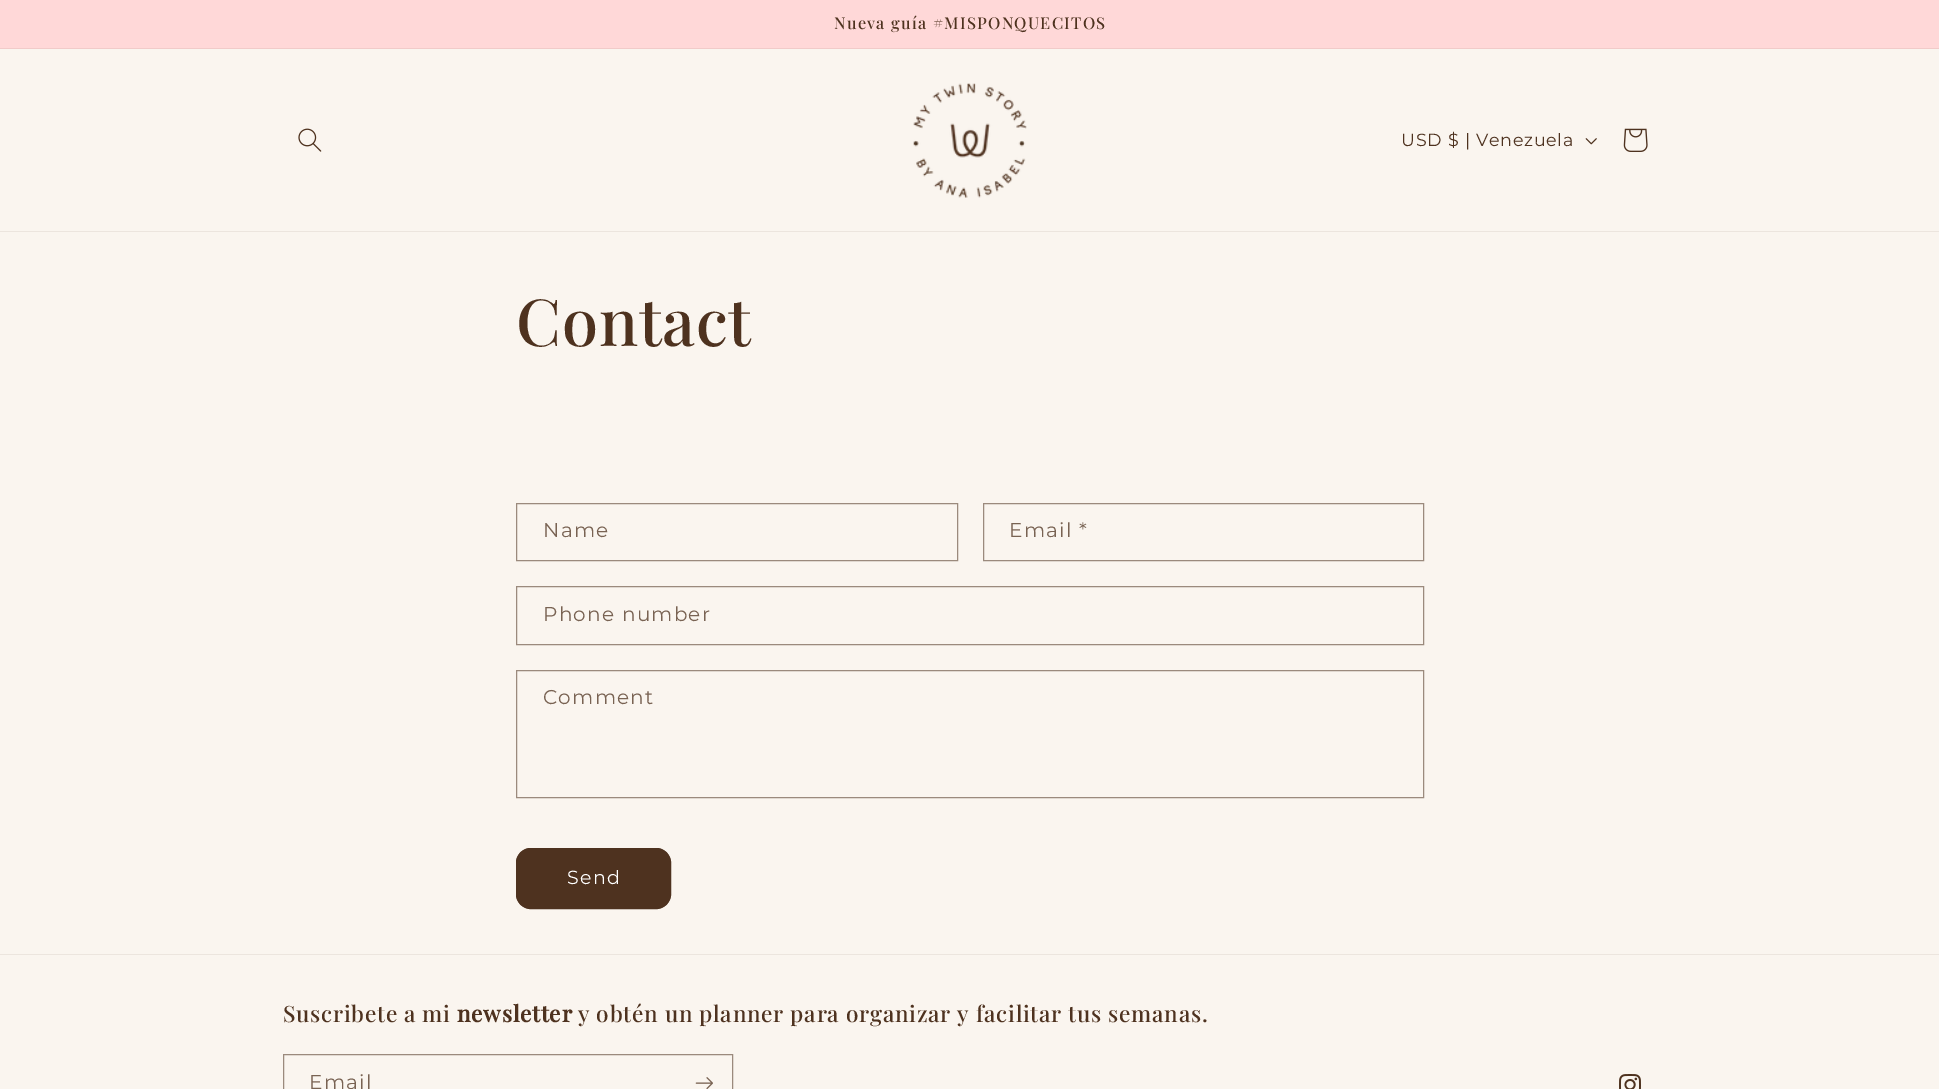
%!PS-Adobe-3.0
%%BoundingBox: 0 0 1939 1089
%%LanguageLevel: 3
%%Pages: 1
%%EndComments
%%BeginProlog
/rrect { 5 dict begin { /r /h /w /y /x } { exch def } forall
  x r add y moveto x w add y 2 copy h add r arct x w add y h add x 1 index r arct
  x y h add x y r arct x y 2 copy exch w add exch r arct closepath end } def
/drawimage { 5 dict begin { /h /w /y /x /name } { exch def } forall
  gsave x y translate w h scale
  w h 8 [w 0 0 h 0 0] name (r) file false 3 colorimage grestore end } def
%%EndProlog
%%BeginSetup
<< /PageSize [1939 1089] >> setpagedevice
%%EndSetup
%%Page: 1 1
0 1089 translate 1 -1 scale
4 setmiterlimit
0.98 0.961 0.937 setrgbcolor
0 0 1939 1089 rectfill
1 0.847 0.847 setrgbcolor
0 0 1939 48 rectfill
0.945 0.796 0.788 setrgbcolor
0 48 1939 1 rectfill
0.925 0.898 0.871 setrgbcolor
0 231 1939 1 rectfill
(images/1.raw) 298 128 24 24 drawimage
(images/2.raw) 913 83 114 115 drawimage
(images/3.raw) 1585 138 12 7 drawimage
(images/4.raw) 1623 128 25 24 drawimage
0.608 0.541 0.49 setrgbcolor
516.5 503.5 441 57 rectstroke
983.5 503.5 440 57 rectstroke
516.5 586.5 907 58 rectstroke
516.5 670.5 907 127 rectstroke
0.306 0.196 0.122 setrgbcolor
516 848 155 61 15 rrect fill
3 setlinewidth
517.5 849.5 152 58 13.5 rrect stroke
0.925 0.898 0.871 setrgbcolor
0 954 1939 1 rectfill
0.608 0.541 0.49 setrgbcolor
1 setlinewidth
283.5 1054.5 449 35 rectstroke
(images/5.raw) 695 1077 18 12 drawimage
(images/6.raw) 1619 1074 22 15 drawimage
/PlayfairDisplay-Medium [16.25 0 0 -16.25 0 0] selectfont
0.306 0.196 0.122 setrgbcolor
834 29 moveto 1.25 0 (Nueva guía #MISPONQUECITOS) ashow
/Montserrat-Regular [17.5 0 0 -17.5 0 0] selectfont
1401 146 moveto 0.75 0 (USD $ | Venezuela) ashow
/PlayfairDisplay-Medium [65 0 0 -65 0 0] selectfont
516 346 moveto 0.75 0 (Contact) ashow
/Montserrat-Regular [20 0 0 -20 0 0] selectfont
0.475 0.388 0.325 setrgbcolor
543 537 moveto 1.25 0 (Name) ashow
1009 537 moveto 1.25 0 (Email *) ashow
543 621 moveto 1.25 0 (Phone number) ashow
543 704 moveto 1.25 0 (Comment) ashow
/Montserrat-Regular [19 0 0 -19 0 0] selectfont
1 setgray
567 884 moveto 1.25 0 (Send) ashow
/PlayfairDisplay-Medium [22.5 0 0 -22.5 0 0] selectfont
0.306 0.196 0.122 setrgbcolor
283 1022 moveto 0.75 0 (Suscribete a mi) ashow
/PlayfairDisplay-Bold [22.5 0 0 -22.5 0 0] selectfont
457 1022 moveto 0.75 0 (newsletter) ashow
/PlayfairDisplay-Medium [22.5 0 0 -22.5 0 0] selectfont
578 1022 moveto 0.75 0 (y obtén un planner para organizar y facilitar tus semanas.) ashow
/Montserrat-Regular [20 0 0 -20 0 0] selectfont
0.475 0.388 0.325 setrgbcolor
309 1089 moveto 1.25 0 (Email) ashow
showpage
%%EOF
